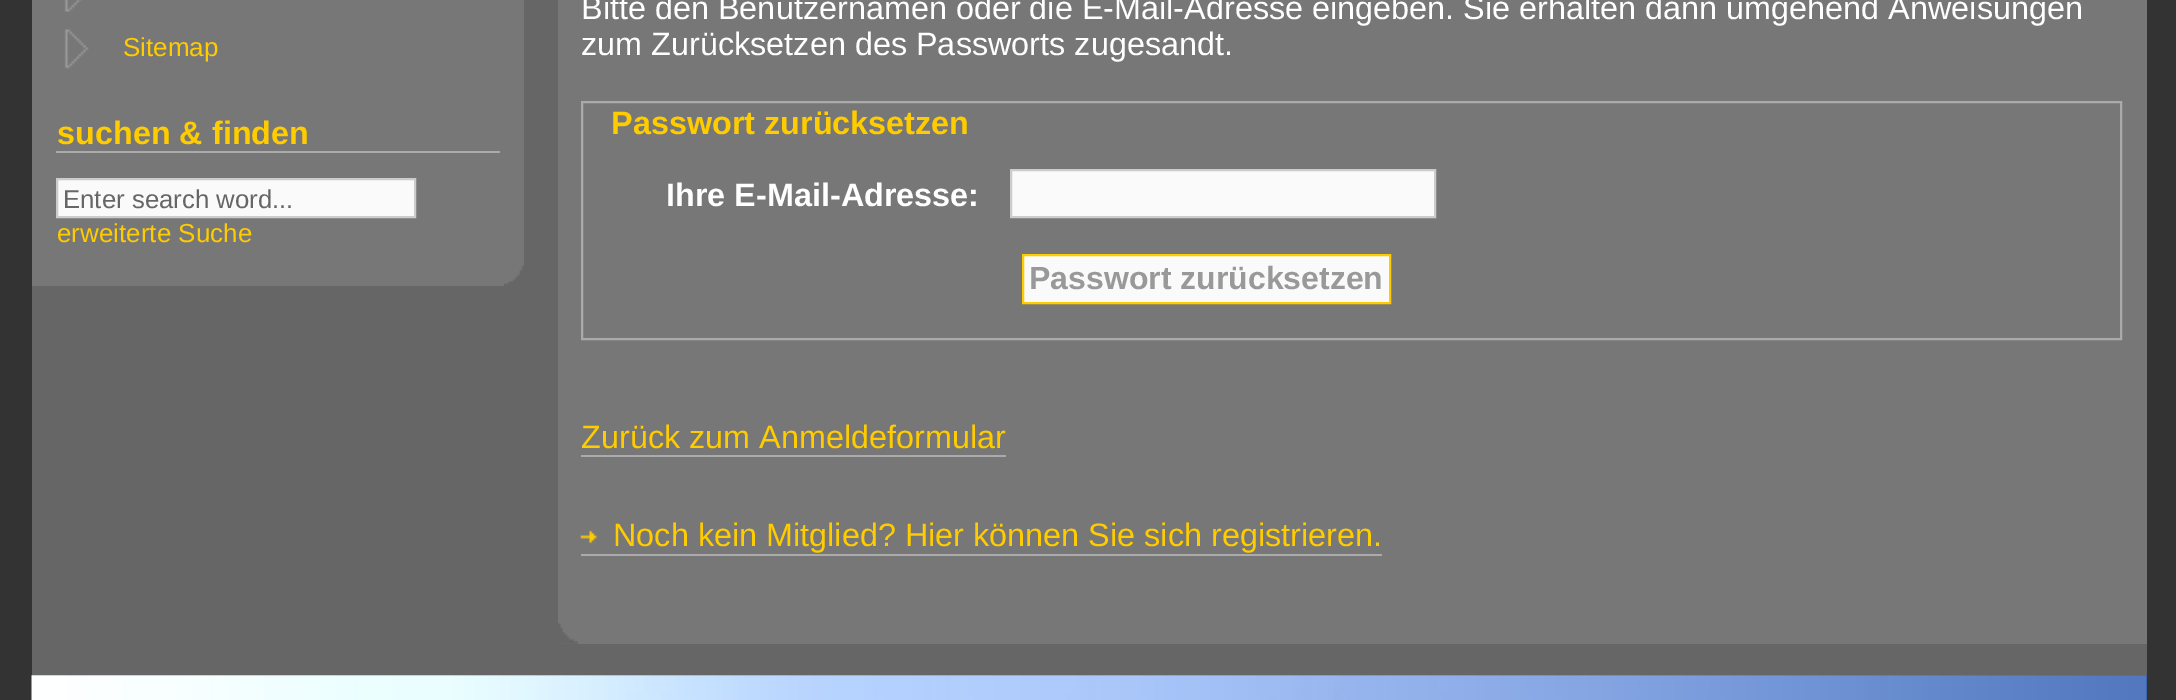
%!PS-Adobe-3.0
%%BoundingBox: 0 0 2176 700
%%LanguageLevel: 3
%%Pages: 1
%%EndComments
%%BeginProlog
/drawimage { 5 dict begin { /h /w /y /x /name } { exch def } forall
  gsave x y translate w h scale
  w h 8 [w 0 0 h 0 0] name (r) file false 3 colorimage grestore end } def
%%EndProlog
%%BeginSetup
<< /PageSize [2176 700] >> setpagedevice
%%EndSetup
%%Page: 1 1
0 700 translate 1 -1 scale
4 setmiterlimit
0.2 setgray
0 0 2176 700 rectfill
0.4 setgray
32 0 2115 675 rectfill
0.467 setgray
32 0 492 286 rectfill
(images/1.raw) 64 0 18 12 drawimage
(images/2.raw) 64 29 25 40 drawimage
0.667 setgray
56 151 444 2 rectfill
0.98 setgray
newpath 57 179 moveto 415 179 lineto 415 217 lineto 57 217 lineto closepath gsave fill grestore
0.8 setgray
2 setlinewidth
stroke
(images/3.raw) 504 265 20 21 drawimage
0.467 setgray
558 0 1589 644 rectfill
0.667 setgray
582 102 1539 237 rectstroke
0.98 setgray
newpath 1011 170 moveto 1435 170 lineto 1435 217 lineto 1011 217 lineto closepath gsave fill grestore
0.8 setgray
stroke
0.98 setgray
newpath 1023 255 moveto 1390 255 lineto 1390 303 lineto 1023 303 lineto closepath gsave fill grestore
1 0.8 0 setrgbcolor
stroke
0.667 setgray
581 455 425 2 rectfill
(images/4.raw) 580 530 17 14 drawimage
581 554 801 2 rectfill
(images/5.raw) 558 623 20 21 drawimage
0.145 0.314 0.624 setrgbcolor
32 675 2115 25 rectfill
(images/6.raw) 31 675 2116 25 drawimage
/LiberationSans-Regular [26 0 0 -26 0 0] selectfont
1 0.8 0 setrgbcolor
123 56 moveto (Sitemap) show
/LiberationSans-Bold [32.4 0 0 -32.4 0 0] selectfont
57 144 moveto (suchen & finden) show
/LiberationSans-Regular [25.75 0 0 -25.75 0 0] selectfont
0.4 setgray
63 208 moveto (Enter search word...) show
/LiberationSans-Regular [26 0 0 -26 0 0] selectfont
1 0.8 0 setrgbcolor
57 242 moveto (erweiterte Suche) show
/LiberationSans-Regular [32.4 0 0 -32.4 0 0] selectfont
1 setgray
581 19 moveto (Bitte den Benutzernamen oder die E-Mail-Adresse eingeben. Sie erhalten dann umgehend Anweisungen) show
581 55 moveto (zum Zurücksetzen des Passworts zugesandt.) show
/LiberationSans-Bold [32.4 0 0 -32.4 0 0] selectfont
1 0.8 0 setrgbcolor
611 134 moveto (Passwort zurücksetzen) show
1 setgray
666 206 moveto (Ihre E-Mail-Adresse:) show
/LiberationSans-Bold [32 0 0 -32 0 0] selectfont
0.6 setgray
1029 289 moveto (Passwort zurücksetzen) show
/LiberationSans-Regular [32.4 0 0 -32.4 0 0] selectfont
1 0.8 0 setrgbcolor
581 448 moveto (Zurück zum Anmeldeformular) show
613 546 moveto (Noch kein Mitglied? Hier können Sie sich registrieren.) show
showpage
%%EOF
